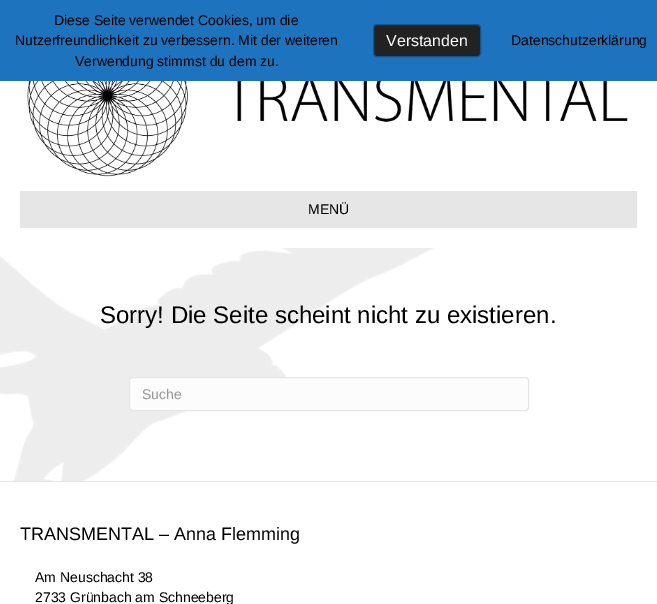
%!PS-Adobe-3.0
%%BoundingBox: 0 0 657 604
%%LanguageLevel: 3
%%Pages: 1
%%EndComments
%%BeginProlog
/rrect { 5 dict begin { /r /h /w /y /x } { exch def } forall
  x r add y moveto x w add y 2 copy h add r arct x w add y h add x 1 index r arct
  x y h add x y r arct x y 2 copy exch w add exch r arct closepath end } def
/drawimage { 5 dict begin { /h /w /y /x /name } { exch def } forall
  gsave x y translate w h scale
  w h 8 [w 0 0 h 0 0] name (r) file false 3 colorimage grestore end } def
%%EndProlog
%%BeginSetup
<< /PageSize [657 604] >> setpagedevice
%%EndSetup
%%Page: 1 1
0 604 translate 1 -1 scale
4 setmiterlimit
1 setgray
0 0 657 604 rectfill
0.118 0.451 0.745 setrgbcolor
0 0 657 81 rectfill
0.133 setgray
373.5 24.5 107 32 3.5 rrect gsave fill grestore
0.086 0.325 0.537 setrgbcolor
stroke
(images/1.raw) 27 81 601 96 drawimage
0.902 setgray
20 191 617 37 rectfill
(images/2.raw) 0 248 434 233 drawimage
0.988 setgray
129.5 377.5 399 33 3.5 rrect gsave fill grestore
0.902 setgray
stroke
0 481 657 1 rectfill
/LiberationSans-Regular [14 0 0 -14 0 0] selectfont
0 setgray
54 25 moveto (Diese Seite verwendet Cookies, um die) show
15 45 moveto (Nutzerfreundlichkeit zu verbessern. Mit der weiteren) show
75 66 moveto (Verwendung stimmst du dem zu.) show
/LiberationSans-Regular [16 0 0 -16 0 0] selectfont
1 setgray
386 46 moveto (Verstanden) show
/LiberationSans-Regular [14 0 0 -14 0 0] selectfont
0 setgray
511 45 moveto (Datenschutzerklärung) show
308 214 moveto (MENÜ) show
/LiberationSans-Regular [24 0 0 -24 0 0] selectfont
100 323 moveto (Sorry! Die Seite scheint nicht zu existieren.) show
/LiberationSans-Regular [14 0 0 -14 0 0] selectfont
0.592 setgray
142 399 moveto (Suche) show
/LiberationSans-Regular [18 0 0 -18 0 0] selectfont
0 setgray
20 540 moveto (TRANSMENTAL – Anna Flemming) show
/LiberationSans-Regular [14 0 0 -14 0 0] selectfont
35 582 moveto (Am Neuschacht 38) show
35 602 moveto (2733 Grünbach am Schneeberg) show
showpage
%%EOF
